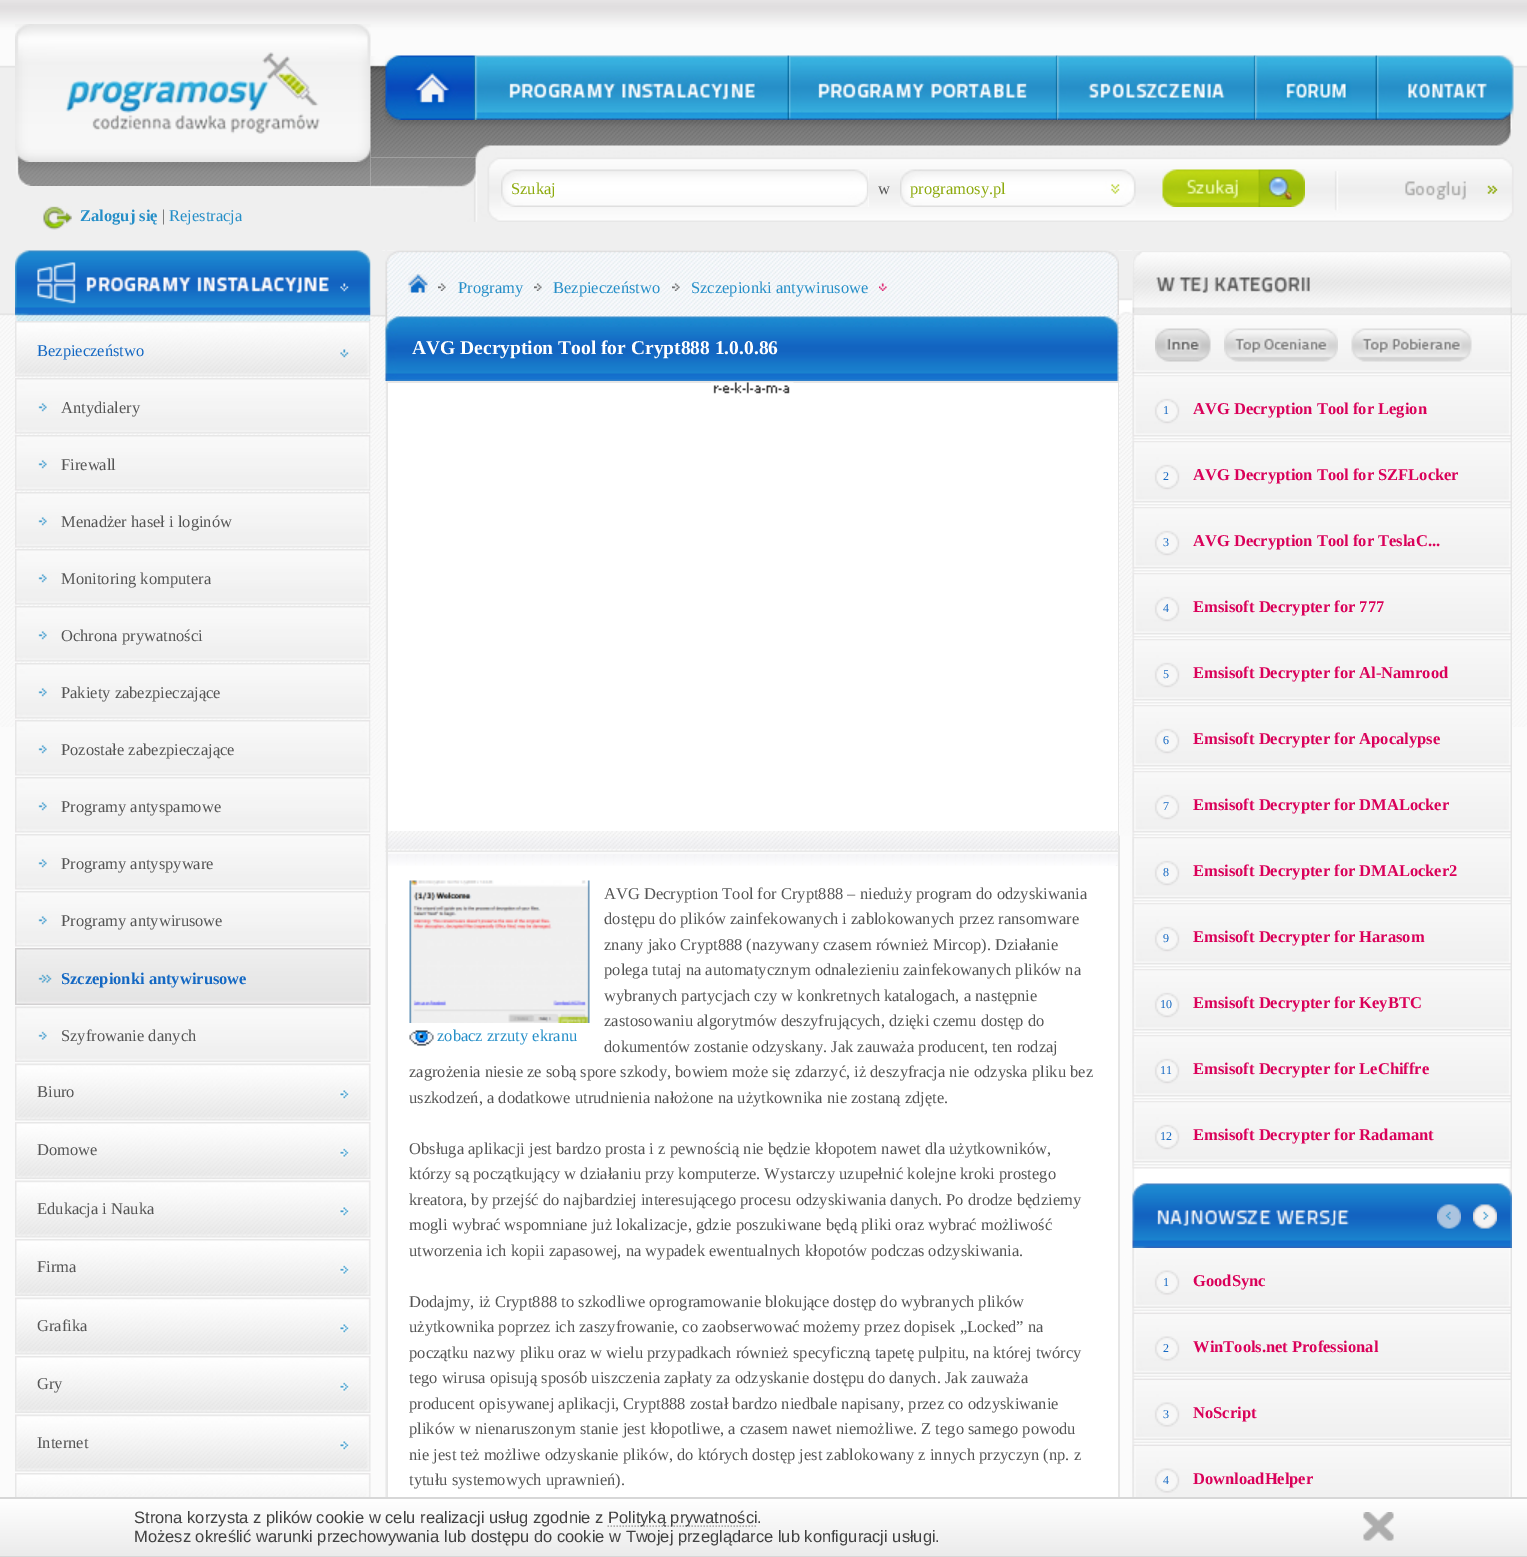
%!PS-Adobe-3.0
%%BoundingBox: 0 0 1527 1557
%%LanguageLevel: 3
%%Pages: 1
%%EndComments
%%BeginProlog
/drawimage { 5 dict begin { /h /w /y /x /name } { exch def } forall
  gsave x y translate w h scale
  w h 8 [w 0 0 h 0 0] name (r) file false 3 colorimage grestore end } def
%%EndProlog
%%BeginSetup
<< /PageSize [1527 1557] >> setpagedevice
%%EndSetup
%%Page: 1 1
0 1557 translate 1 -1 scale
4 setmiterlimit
0.984 setgray
0 0 1527 1557 rectfill
(images/1.raw) 0 0 1527 727 drawimage
(images/15.raw) 15 24 356 138 drawimage
(images/2.raw) 370 56 16 64 drawimage
(images/3.raw) 385 55 91 65 drawimage
(images/4.raw) 475 55 314 65 drawimage
(images/5.raw) 789 55 269 65 drawimage
(images/6.raw) 1057 55 199 65 drawimage
(images/7.raw) 1255 55 122 65 drawimage
(images/8.raw) 1377 55 137 65 drawimage
(images/9.raw) 370 120 1142 38 drawimage
(images/16.raw) 16 162 355 24 drawimage
(images/10.raw) 370 157 1144 65 drawimage
1 setgray
868 170 1 37 rectfill
(images/11.raw) 501 169 368 38 drawimage
(images/12.raw) 900 169 236 38 drawimage
(images/13.raw) 1162 169 143 38 drawimage
(images/14.raw) 1405 181 92 19 drawimage
(images/17.raw) 43 206 29 24 drawimage
(images/18.raw) 382 250 1130 1247 drawimage
(images/19.raw) 15 250 356 71 drawimage
(images/20.raw) 15 321 356 56 drawimage
(images/21.raw) 15 378 356 56 drawimage
(images/22.raw) 15 435 356 56 drawimage
(images/23.raw) 15 492 356 56 drawimage
(images/24.raw) 15 549 356 56 drawimage
(images/25.raw) 15 606 356 56 drawimage
(images/26.raw) 15 663 356 56 drawimage
(images/27.raw) 15 720 356 56 drawimage
(images/28.raw) 15 777 356 56 drawimage
(images/28.raw) 15 834 356 56 drawimage
(images/28.raw) 15 891 356 56 drawimage
(images/29.raw) 15 948 356 57 drawimage
(images/30.raw) 15 1006 356 56 drawimage
(images/31.raw) 15 1063 356 58 drawimage
(images/32.raw) 15 1122 356 57 drawimage
(images/31.raw) 15 1180 356 58 drawimage
(images/32.raw) 15 1239 356 57 drawimage
(images/31.raw) 15 1297 356 58 drawimage
(images/32.raw) 15 1356 356 57 drawimage
(images/31.raw) 15 1414 356 58 drawimage
(images/33.raw) 15 1473 356 24 drawimage
(images/34.raw) 370 251 16 673 drawimage
(images/35.raw) 385 250 734 65 drawimage
(images/36.raw) 408 274 20 19 drawimage
(images/37.raw) 438 283 8 8 drawimage
(images/38.raw) 534 283 8 8 drawimage
(images/39.raw) 672 283 8 8 drawimage
(images/40.raw) 879 283 8 8 drawimage
(images/41.raw) 385 315 734 66 drawimage
1115 383 3 448 rectfill
0.902 setgray
386 381 733 2 rectfill
1118 381 1 450 rectfill
387 381 1 450 rectfill
(images/42.raw) 711 382 83 12 drawimage
(images/43.raw) 385 831 733 35 drawimage
1118 831 2 666 rectfill
386 831 2 35 rectfill
1 setgray
1115 866 3 631 rectfill
0.902 setgray
387 866 1 631 rectfill
(images/44.raw) 409 880 181 143 drawimage
(images/45.raw) 409 1030 25 16 drawimage
(images/46.raw) 1119 251 14 585 drawimage
(images/47.raw) 1132 250 380 64 drawimage
(images/48.raw) 1132 313 380 64 drawimage
(images/49.raw) 1155 328 56 34 drawimage
(images/50.raw) 1224 328 114 34 drawimage
(images/51.raw) 1351 328 121 34 drawimage
(images/52.raw) 1132 376 380 67 drawimage
(images/53.raw) 1132 442 380 67 drawimage
(images/54.raw) 1132 508 380 67 drawimage
(images/55.raw) 1132 574 380 67 drawimage
(images/56.raw) 1132 640 380 67 drawimage
(images/57.raw) 1132 706 380 67 drawimage
(images/58.raw) 1132 772 380 67 drawimage
(images/59.raw) 1132 838 380 67 drawimage
(images/60.raw) 1132 904 380 67 drawimage
(images/59.raw) 1132 970 380 67 drawimage
(images/60.raw) 1132 1036 380 67 drawimage
(images/60.raw) 1132 1102 380 67 drawimage
(images/61.raw) 1132 1183 380 65 drawimage
(images/62.raw) 1437 1204 24 25 drawimage
(images/63.raw) 1473 1204 24 25 drawimage
(images/64.raw) 1132 1248 380 66 drawimage
(images/64.raw) 1132 1314 380 66 drawimage
(images/64.raw) 1132 1380 380 66 drawimage
(images/65.raw) 1132 1446 380 51 drawimage
gsave newpath 0 1499 moveto 1527 1499 lineto 1527 1556 lineto 0 1556 lineto closepath clip newpath
<< /ShadingType 2 /ColorSpace /DeviceRGB /Coords [764 1498 764 1556] /Extend [true true] /Function << /FunctionType 2 /Domain [0 1] /C0 [1 1 1] /C1 [0.922 0.922 0.922] /N 1 >> >> shfill grestore
0.843 setgray
0 1497 1527 2 rectfill
0 1556 1527 1 rectfill
0.682 setgray
1.5 setlinewidth
[1.5 1.5] 0 setdash
newpath 607.5 1526 moveto 757.5 1526 lineto stroke
(images/66.raw) 1363 1512 31 29 drawimage
gsave
512 173 346 31 rectclip
/LiberationSerif-Regular [16.5 0 0 -16.5 0 0] selectfont
0.553 0.667 0.051 setrgbcolor
511 194 moveto (Szukaj) show
grestore
/LiberationSerif-Regular [16.5 0 0 -16.5 0 0] selectfont
0.553 0.667 0.051 setrgbcolor
910 194 moveto (programosy.pl) show
0.337 setgray
878 194 moveto (w) show
/LiberationSerif-Bold [16.5 0 0 -16.5 0 0] selectfont
0.149 0.561 0.784 setrgbcolor
80 221 moveto (Zaloguj się) show
/LiberationSerif-Regular [16.5 0 0 -16.5 0 0] selectfont
0.337 setgray
162 221 moveto (|) show
0.149 0.561 0.784 setrgbcolor
169 221 moveto (Rejestracja) show
0.078 0.408 0.765 setrgbcolor
37 356 moveto (Bezpieczeństwo) show
0.337 setgray
61 413 moveto (Antydialery) show
61 470 moveto (Firewall) show
61 527 moveto (Menadżer haseł i loginów) show
61 584 moveto (Monitoring komputera) show
61 641 moveto (Ochrona prywatności) show
61 698 moveto (Pakiety zabezpieczające) show
61 755 moveto (Pozostałe zabezpieczające) show
61 812 moveto (Programy antyspamowe) show
61 869 moveto (Programy antyspyware) show
61 926 moveto (Programy antywirusowe) show
/LiberationSerif-Bold [16.5 0 0 -16.5 0 0] selectfont
0.078 0.408 0.765 setrgbcolor
61 984 moveto (Szczepionki antywirusowe) show
/LiberationSerif-Regular [16.5 0 0 -16.5 0 0] selectfont
0.337 setgray
61 1041 moveto (Szyfrowanie danych) show
37 1097 moveto (Biuro) show
37 1155 moveto (Domowe) show
37 1214 moveto (Edukacja i Nauka) show
37 1272 moveto (Firma) show
37 1331 moveto (Grafika) show
37 1389 moveto (Gry) show
37 1448 moveto (Internet) show
0.149 0.561 0.784 setrgbcolor
458 293 moveto (Programy) show
553 293 moveto (Bezpieczeństwo) show
691 293 moveto (Szczepionki antywirusowe) show
/LiberationSerif-Bold [19.5 0 0 -19.5 0 0] selectfont
1 setgray
412 354 moveto (AVG Decryption Tool for Crypt888 1.0.0.86) show
/LiberationSerif-Regular [16.5 0 0 -16.5 0 0] selectfont
0.337 setgray
604 899 moveto (AVG Decryption Tool for Crypt888 – nieduży program do odzyskiwania) show
604 924 moveto (dostępu do plików zainfekowanych i zablokowanych przez ransomware) show
604 950 moveto (znany jako Crypt888 \(nazywany czasem również Mircop\). Działanie) show
604 975 moveto (polega tutaj na automatycznym odnalezieniu zainfekowanych plików na) show
604 1001 moveto (wybranych partycjach czy w konkretnych katalogach, a następnie) show
604 1026 moveto (zastosowaniu algorytmów deszyfrujących, dzięki czemu dostęp do) show
604 1052 moveto (dokumentów zostanie odzyskany. Jak zauważa producent, ten rodzaj) show
409 1077 moveto (zagrożenia niesie ze sobą spore szkody, bowiem może się zdarzyć, iż deszyfracja nie odzyska pliku bez) show
409 1103 moveto (uszkodzeń, a dodatkowe utrudnienia nałożone na użytkownika nie zostaną zdjęte.) show
409 1154 moveto (Obsługa aplikacji jest bardzo prosta i z pewnością nie będzie kłopotem nawet dla użytkowników,) show
409 1179 moveto (którzy są początkujący w działaniu przy komputerze. Wystarczy uzupełnić kolejne kroki prostego) show
409 1205 moveto (kreatora, by przejść do najbardziej interesującego procesu odzyskiwania danych. Po drodze będziemy) show
409 1230 moveto (mogli wybrać wspomniane już lokalizacje, gdzie poszukiwane będą pliki oraz wybrać możliwość) show
409 1256 moveto (utworzenia ich kopii zapasowej, na wypadek ewentualnych kłopotów podczas odzyskiwania.) show
409 1307 moveto (Dodajmy, iż Crypt888 to szkodliwe oprogramowanie blokujące dostęp do wybranych plików) show
409 1332 moveto (użytkownika poprzez ich zaszyfrowanie, co zaobserwować możemy przez dopisek „Locked” na) show
409 1358 moveto (początku nazwy pliku oraz w wielu przypadkach również specyficzną tapetę pulpitu, na której twórcy) show
409 1383 moveto (tego wirusa opisują sposób uiszczenia zapłaty za odzyskanie dostępu do danych. Jak zauważa) show
409 1409 moveto (producent opisywanej aplikacji, Crypt888 został bardzo niedbale napisany, przez co odzyskiwanie) show
409 1434 moveto (plików w nienaruszonym stanie jest kłopotliwe, a czasem nawet niemożliwe. Z tego samego powodu) show
409 1460 moveto (nie jest też możliwe odzyskanie plików, do których dostęp jest zablokowany z innych przyczyn \(np. z) show
409 1485 moveto (tytułu systemowych uprawnień\).) show
0.149 0.561 0.784 setrgbcolor
437 1041 moveto (zobacz zrzuty ekranu) show
/LiberationSerif-Regular [12 0 0 -12 0 0] selectfont
0.078 0.408 0.765 setrgbcolor
1163 414 moveto (1) show
/LiberationSerif-Bold [16.5 0 0 -16.5 0 0] selectfont
0.855 0 0.349 setrgbcolor
1193 414 moveto (AVG Decryption Tool for Legion) show
/LiberationSerif-Regular [12 0 0 -12 0 0] selectfont
0.078 0.408 0.765 setrgbcolor
1163 480 moveto (2) show
/LiberationSerif-Bold [16.5 0 0 -16.5 0 0] selectfont
0.855 0 0.349 setrgbcolor
1193 480 moveto (AVG Decryption Tool for SZFLocker) show
/LiberationSerif-Regular [12 0 0 -12 0 0] selectfont
0.078 0.408 0.765 setrgbcolor
1163 546 moveto (3) show
/LiberationSerif-Bold [16.5 0 0 -16.5 0 0] selectfont
0.855 0 0.349 setrgbcolor
1193 546 moveto (AVG Decryption Tool for TeslaC...) show
/LiberationSerif-Regular [12 0 0 -12 0 0] selectfont
0.078 0.408 0.765 setrgbcolor
1163 612 moveto (4) show
/LiberationSerif-Bold [16.5 0 0 -16.5 0 0] selectfont
0.855 0 0.349 setrgbcolor
1193 612 moveto (Emsisoft Decrypter for 777) show
/LiberationSerif-Regular [12 0 0 -12 0 0] selectfont
0.078 0.408 0.765 setrgbcolor
1163 678 moveto (5) show
/LiberationSerif-Bold [16.5 0 0 -16.5 0 0] selectfont
0.855 0 0.349 setrgbcolor
1193 678 moveto (Emsisoft Decrypter for Al-Namrood) show
/LiberationSerif-Regular [12 0 0 -12 0 0] selectfont
0.078 0.408 0.765 setrgbcolor
1163 744 moveto (6) show
/LiberationSerif-Bold [16.5 0 0 -16.5 0 0] selectfont
0.855 0 0.349 setrgbcolor
1193 744 moveto (Emsisoft Decrypter for Apocalypse) show
/LiberationSerif-Regular [12 0 0 -12 0 0] selectfont
0.078 0.408 0.765 setrgbcolor
1163 810 moveto (7) show
/LiberationSerif-Bold [16.5 0 0 -16.5 0 0] selectfont
0.855 0 0.349 setrgbcolor
1193 810 moveto (Emsisoft Decrypter for DMALocker) show
/LiberationSerif-Regular [12 0 0 -12 0 0] selectfont
0.078 0.408 0.765 setrgbcolor
1163 876 moveto (8) show
/LiberationSerif-Bold [16.5 0 0 -16.5 0 0] selectfont
0.855 0 0.349 setrgbcolor
1193 876 moveto (Emsisoft Decrypter for DMALocker2) show
/LiberationSerif-Regular [12 0 0 -12 0 0] selectfont
0.078 0.408 0.765 setrgbcolor
1163 942 moveto (9) show
/LiberationSerif-Bold [16.5 0 0 -16.5 0 0] selectfont
0.855 0 0.349 setrgbcolor
1193 942 moveto (Emsisoft Decrypter for Harasom) show
/LiberationSerif-Regular [12 0 0 -12 0 0] selectfont
0.078 0.408 0.765 setrgbcolor
1160 1008 moveto (10) show
/LiberationSerif-Bold [16.5 0 0 -16.5 0 0] selectfont
0.855 0 0.349 setrgbcolor
1193 1008 moveto (Emsisoft Decrypter for KeyBTC) show
/LiberationSerif-Regular [12 0 0 -12 0 0] selectfont
0.078 0.408 0.765 setrgbcolor
1160 1074 moveto (11) show
/LiberationSerif-Bold [16.5 0 0 -16.5 0 0] selectfont
0.855 0 0.349 setrgbcolor
1193 1074 moveto (Emsisoft Decrypter for LeChiffre) show
/LiberationSerif-Regular [12 0 0 -12 0 0] selectfont
0.078 0.408 0.765 setrgbcolor
1160 1140 moveto (12) show
/LiberationSerif-Bold [16.5 0 0 -16.5 0 0] selectfont
0.855 0 0.349 setrgbcolor
1193 1140 moveto (Emsisoft Decrypter for Radamant) show
/LiberationSerif-Regular [12 0 0 -12 0 0] selectfont
0.078 0.408 0.765 setrgbcolor
1163 1286 moveto (1) show
/LiberationSerif-Bold [16.5 0 0 -16.5 0 0] selectfont
0.855 0 0.349 setrgbcolor
1193 1286 moveto (GoodSync) show
/LiberationSerif-Regular [12 0 0 -12 0 0] selectfont
0.078 0.408 0.765 setrgbcolor
1163 1352 moveto (2) show
/LiberationSerif-Bold [16.5 0 0 -16.5 0 0] selectfont
0.855 0 0.349 setrgbcolor
1193 1352 moveto (WinTools.net Professional) show
/LiberationSerif-Regular [12 0 0 -12 0 0] selectfont
0.078 0.408 0.765 setrgbcolor
1163 1418 moveto (3) show
/LiberationSerif-Bold [16.5 0 0 -16.5 0 0] selectfont
0.855 0 0.349 setrgbcolor
1193 1418 moveto (NoScript) show
/LiberationSerif-Regular [12 0 0 -12 0 0] selectfont
0.078 0.408 0.765 setrgbcolor
1163 1484 moveto (4) show
/LiberationSerif-Bold [16.5 0 0 -16.5 0 0] selectfont
0.855 0 0.349 setrgbcolor
1193 1484 moveto (DownloadHelper) show
/LiberationSans-Regular [16.5 0 0 -16.5 0 0] selectfont
0.255 setgray
134 1523 moveto (Strona korzysta z plików cookie w celu realizacji usług zgodnie z) show
608 1523 moveto (Polityką prywatności.) show
134 1542 moveto (Możesz określić warunki przechowywania lub dostępu do cookie w Twojej przeglądarce lub konfiguracji usługi.) show
showpage
%%EOF
